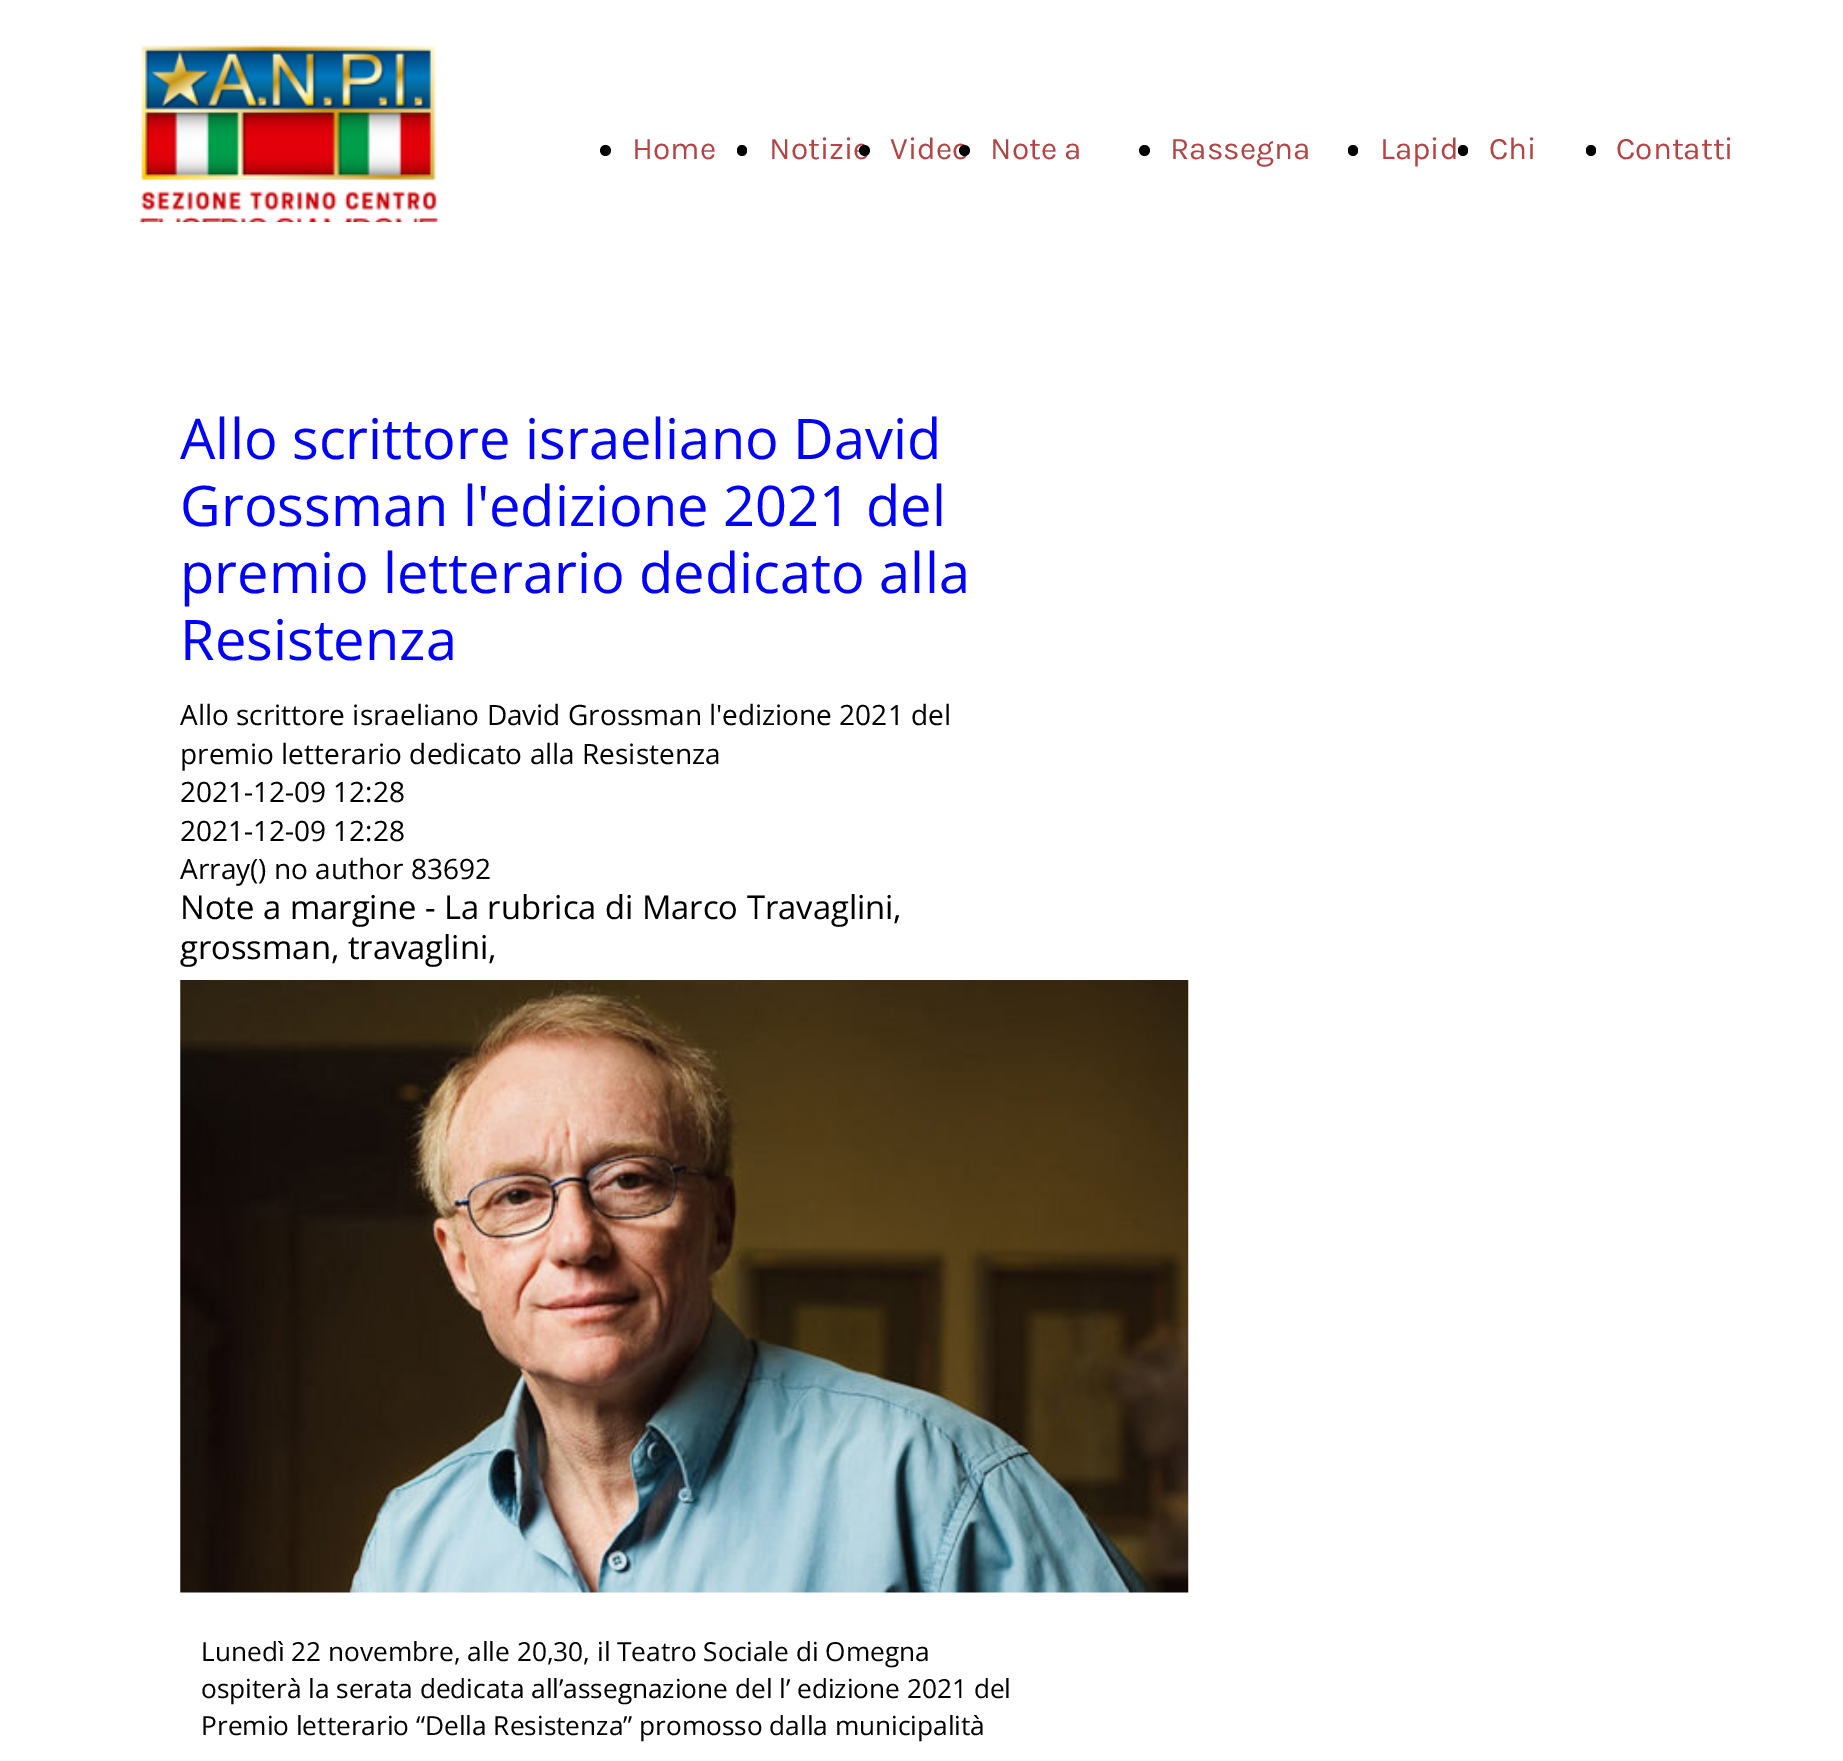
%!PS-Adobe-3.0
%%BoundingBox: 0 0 1843 1761
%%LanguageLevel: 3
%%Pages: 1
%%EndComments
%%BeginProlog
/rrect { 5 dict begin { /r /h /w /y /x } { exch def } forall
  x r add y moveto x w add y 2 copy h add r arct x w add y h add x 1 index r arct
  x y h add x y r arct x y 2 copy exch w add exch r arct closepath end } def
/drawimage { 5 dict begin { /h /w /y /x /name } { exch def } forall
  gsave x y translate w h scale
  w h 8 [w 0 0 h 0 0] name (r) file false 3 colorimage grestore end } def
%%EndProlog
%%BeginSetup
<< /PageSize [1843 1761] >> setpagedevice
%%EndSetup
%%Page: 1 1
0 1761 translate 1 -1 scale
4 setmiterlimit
1 setgray
0 0 1843 1761 rectfill
(images/1.raw) 139 45 299 177 drawimage
0 setgray
newpath 605.5 150.5 5.5 0 360 arc closepath fill
737 145 10 11 5 rrect fill
newpath 1144.5 150.5 5.5 0 360 arc closepath fill
1348 145 10 11 5 rrect fill
1458 145 10 11 5 rrect fill
1586 145 10 11 5 rrect fill
(images/2.raw) 180 980 1009 613 drawimage
/Karla-Regular [31.5 0 0 -31.5 0 0] selectfont
0.706 0.267 0.267 setrgbcolor
632 159 moveto (Home) show
769 159 moveto (Notizie) show
0 setgray
newpath 864.5 150.5 5.5 0 360 arc closepath fill
0.706 0.267 0.267 setrgbcolor
890 159 moveto (Video) show
0 setgray
newpath 964.5 150.5 5.5 0 360 arc closepath fill
0.706 0.267 0.267 setrgbcolor
990 159 moveto (Note a) show
1170 159 moveto (Rassegna) show
1380 159 moveto (Lapid) show
1489 159 moveto (Chi) show
1616 159 moveto (Contatti) show
/OpenSans-Regular [56 0 0 -56 0 0] selectfont
0 0 1 setrgbcolor
180 459 moveto (Allo scrittore israeliano David) show
180 526 moveto (Grossman l'edizione 2021 del) show
180 593 moveto (premio letterario dedicato alla) show
180 660 moveto (Resistenza) show
/OpenSans-Regular [28 0 0 -28 0 0] selectfont
0 setgray
180 725 moveto (Allo scrittore israeliano David Grossman l'edizione 2021 del) show
180 764 moveto (premio letterario dedicato alla Resistenza) show
180 802 moveto (2021-12-09 12:28) show
180 841 moveto (2021-12-09 12:28) show
180 879 moveto (Array\(\) no author 83692) show
/OpenSans-Regular [32.75 0 0 -32.75 0 0] selectfont
180 919 moveto (Note a margine - La rubrica di Marco Travaglini,) show
180 959 moveto (grossman, travaglini,) show
/OpenSans-Regular [26.25 0 0 -26.25 0 0] selectfont
201 1661 moveto (Lunedì 22 novembre, alle 20,30, il Teatro Sociale di Omegna) show
201 1698 moveto (ospiterà la serata dedicata all’assegnazione del l’ edizione 2021 del) show
201 1735 moveto (Premio letterario “Della Resistenza” promosso dalla municipalità) show
showpage
%%EOF
